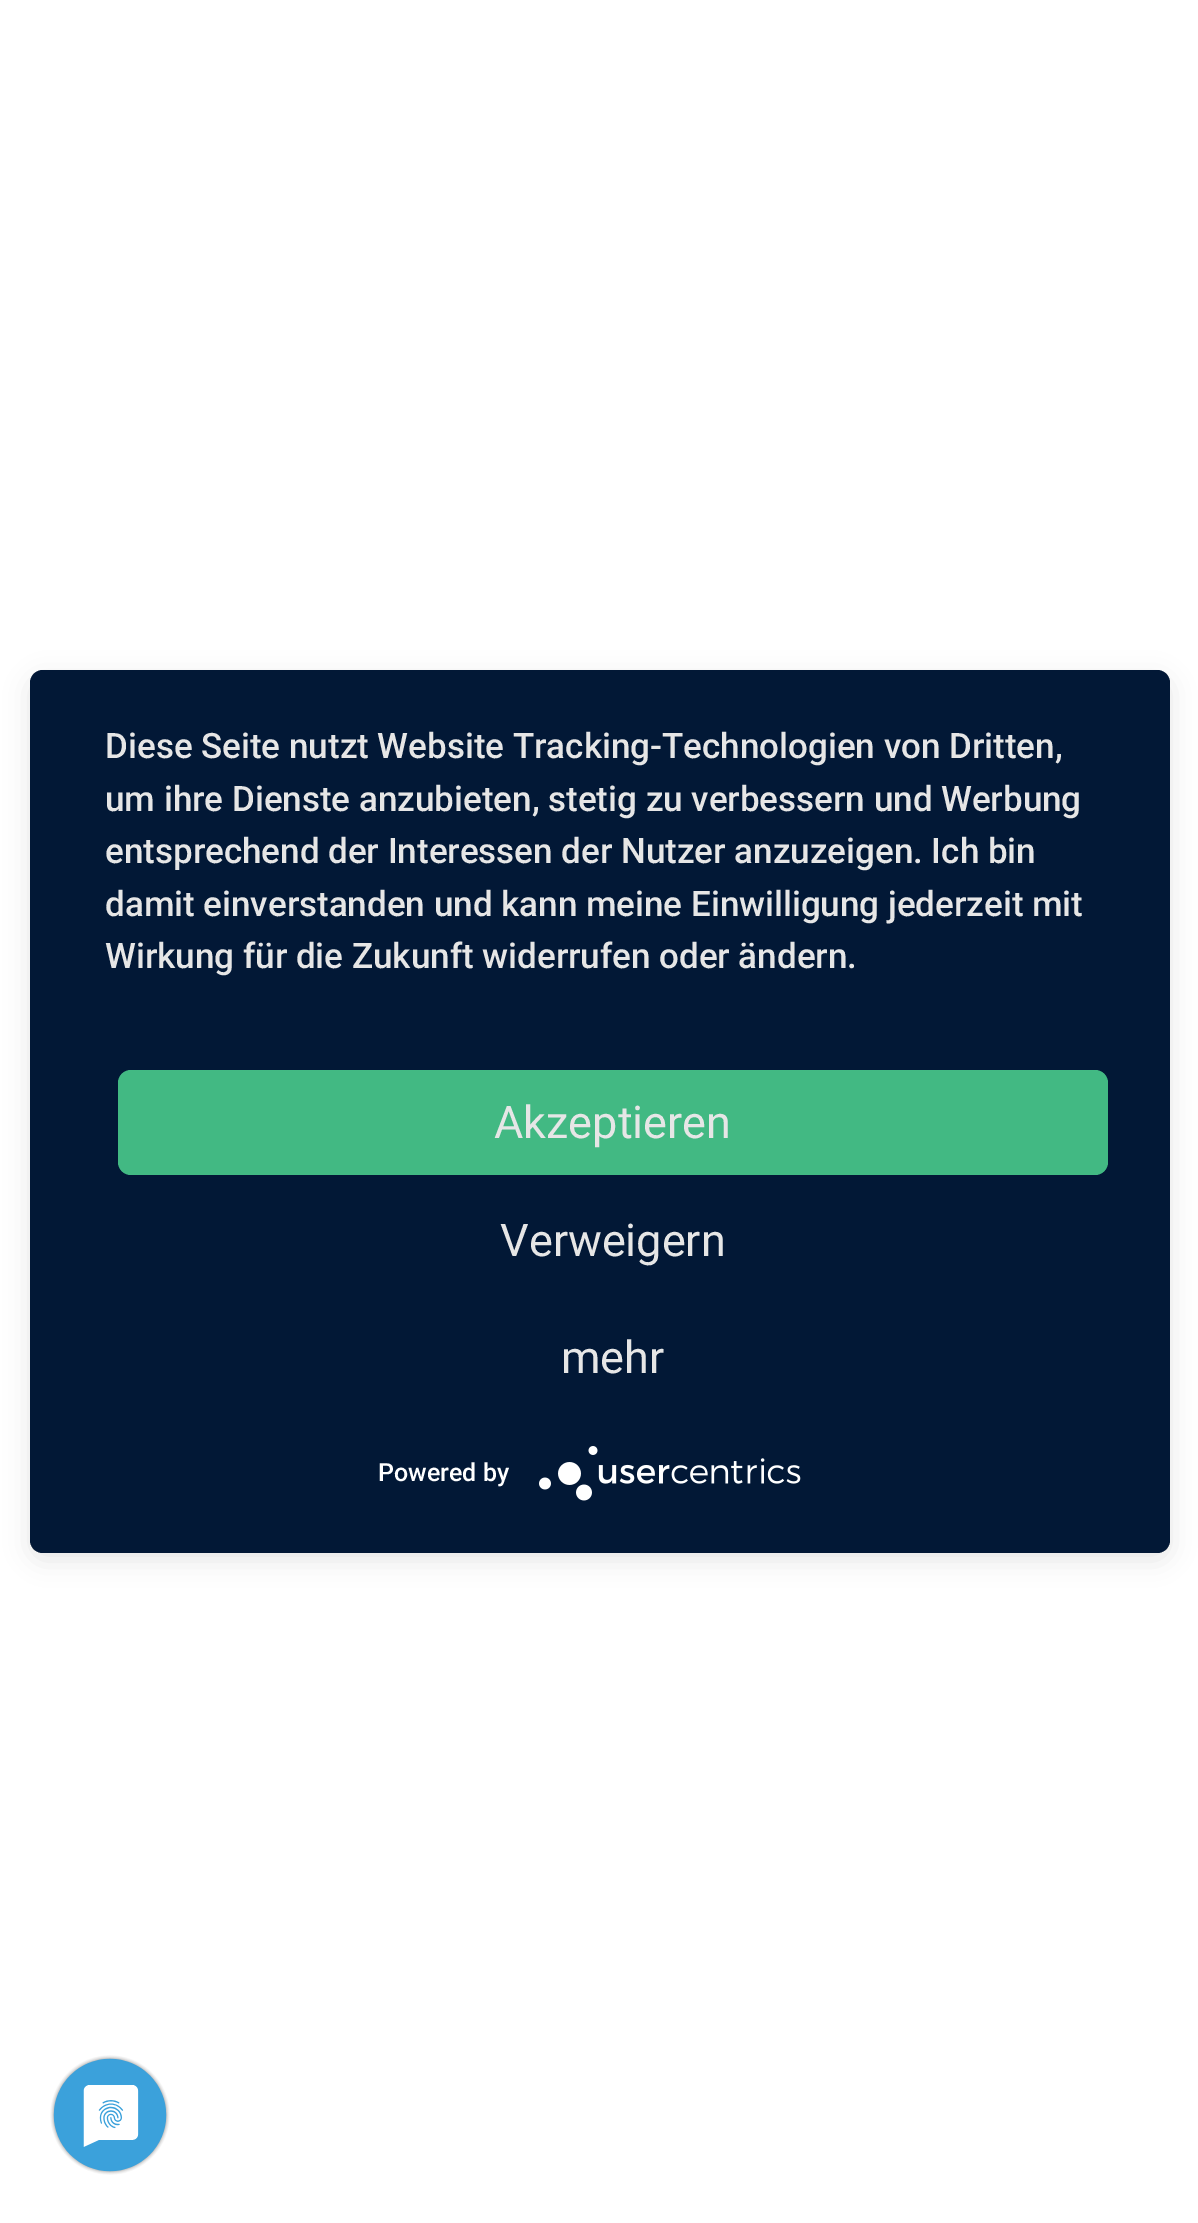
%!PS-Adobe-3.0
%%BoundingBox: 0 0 1198 2223
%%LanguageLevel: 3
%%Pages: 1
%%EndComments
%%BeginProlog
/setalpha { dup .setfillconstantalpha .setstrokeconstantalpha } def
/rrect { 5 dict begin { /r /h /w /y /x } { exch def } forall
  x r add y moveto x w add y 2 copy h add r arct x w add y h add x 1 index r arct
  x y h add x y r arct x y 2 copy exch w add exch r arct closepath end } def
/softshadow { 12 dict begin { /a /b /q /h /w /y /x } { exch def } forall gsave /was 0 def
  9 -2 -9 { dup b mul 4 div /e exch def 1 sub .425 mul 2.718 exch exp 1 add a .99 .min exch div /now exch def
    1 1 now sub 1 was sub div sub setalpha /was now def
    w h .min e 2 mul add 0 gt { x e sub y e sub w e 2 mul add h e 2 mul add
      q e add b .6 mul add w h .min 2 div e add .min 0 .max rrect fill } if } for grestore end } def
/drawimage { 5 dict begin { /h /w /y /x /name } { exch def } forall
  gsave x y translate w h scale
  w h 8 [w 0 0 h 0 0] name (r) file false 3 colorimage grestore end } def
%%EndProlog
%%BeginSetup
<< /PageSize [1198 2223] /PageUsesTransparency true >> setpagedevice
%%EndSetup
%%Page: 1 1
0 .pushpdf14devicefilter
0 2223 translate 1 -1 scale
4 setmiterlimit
1 setgray
0 0 1198 2223 rectfill
0 setgray
30 678 1140 882 13 12.5 0.1 softshadow
gsave
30 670 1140 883 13 rrect clip newpath
30 685 1140 883 0 45 0.3 softshadow
grestore
0.008 0.094 0.212 setrgbcolor
30 670 1140 883 13 rrect fill
0.259 0.725 0.514 setrgbcolor
118 1070 990 105 13 rrect fill
(images/1.raw) 539 1446 262 55 drawimage
(images/2.raw) 50 2055 120 120 drawimage
/Roboto-Medium [35 0 0 -35 0 0] selectfont
0.902 setgray
105 758 moveto (Diese Seite nutzt Website Tracking-Technologien von Dritten,) show
105 811 moveto (um ihre Dienste anzubieten, stetig zu verbessern und Werbung) show
105 863 moveto (entsprechend der Interessen der Nutzer anzuzeigen. Ich bin) show
105 916 moveto (damit einverstanden und kann meine Einwilligung jederzeit mit) show
105 968 moveto (Wirkung für die Zukunft widerrufen oder ändern.) show
/Roboto-Regular [45 0 0 -45 0 0] selectfont
494 1138 moveto (Akzeptieren) show
500 1256 moveto (Verweigern) show
561 1373 moveto (mehr) show
/Roboto-Medium [25 0 0 -25 0 0] selectfont
1 setgray
378 1481 moveto (Powered by) show
.poppdf14devicefilter showpage
%%EOF
